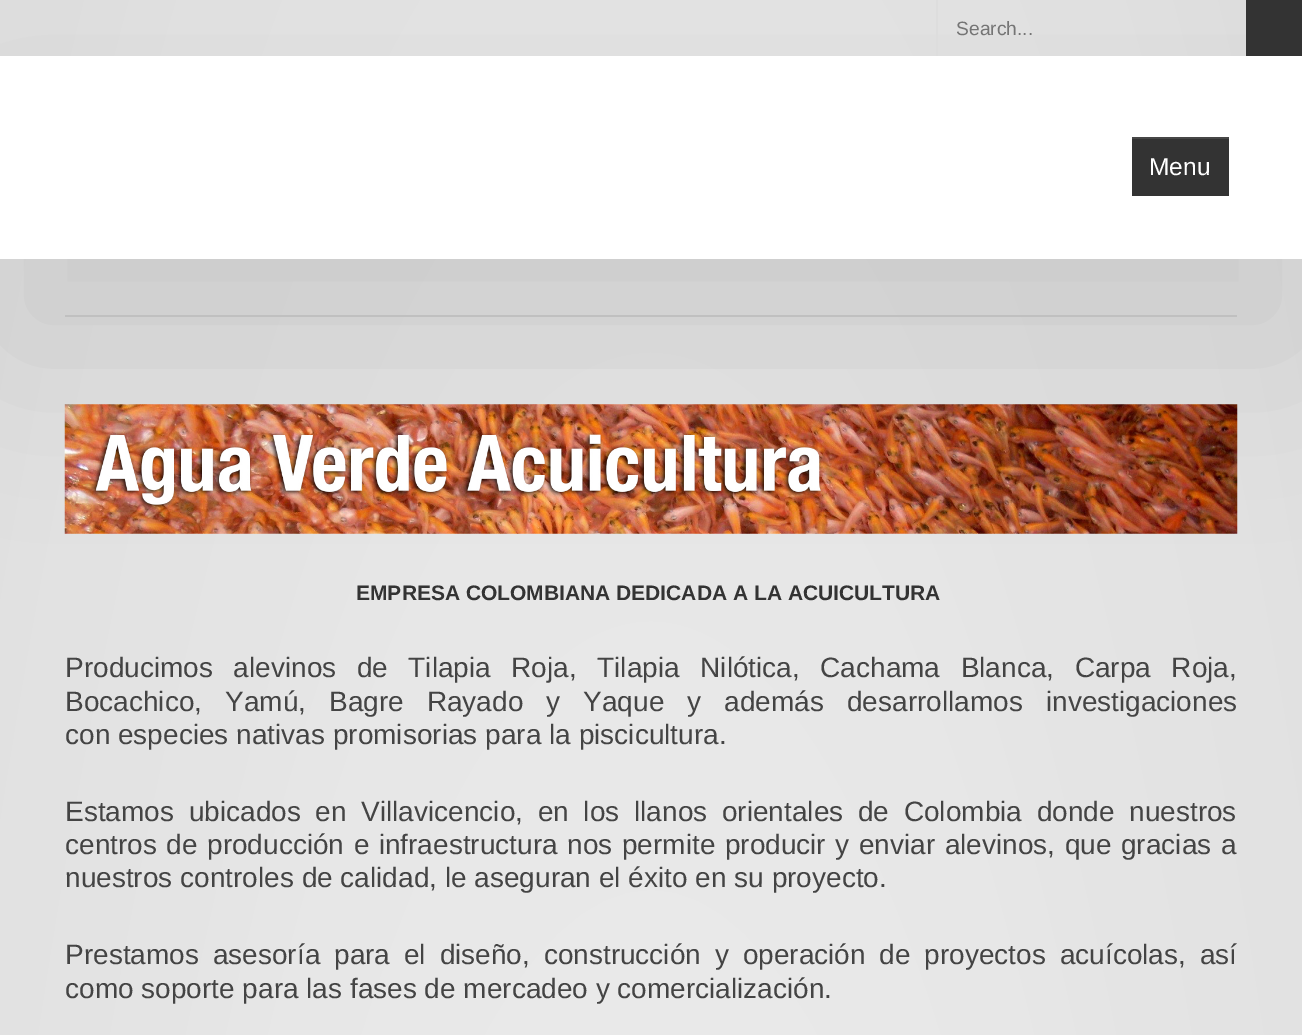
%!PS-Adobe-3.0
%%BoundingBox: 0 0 1302 1035
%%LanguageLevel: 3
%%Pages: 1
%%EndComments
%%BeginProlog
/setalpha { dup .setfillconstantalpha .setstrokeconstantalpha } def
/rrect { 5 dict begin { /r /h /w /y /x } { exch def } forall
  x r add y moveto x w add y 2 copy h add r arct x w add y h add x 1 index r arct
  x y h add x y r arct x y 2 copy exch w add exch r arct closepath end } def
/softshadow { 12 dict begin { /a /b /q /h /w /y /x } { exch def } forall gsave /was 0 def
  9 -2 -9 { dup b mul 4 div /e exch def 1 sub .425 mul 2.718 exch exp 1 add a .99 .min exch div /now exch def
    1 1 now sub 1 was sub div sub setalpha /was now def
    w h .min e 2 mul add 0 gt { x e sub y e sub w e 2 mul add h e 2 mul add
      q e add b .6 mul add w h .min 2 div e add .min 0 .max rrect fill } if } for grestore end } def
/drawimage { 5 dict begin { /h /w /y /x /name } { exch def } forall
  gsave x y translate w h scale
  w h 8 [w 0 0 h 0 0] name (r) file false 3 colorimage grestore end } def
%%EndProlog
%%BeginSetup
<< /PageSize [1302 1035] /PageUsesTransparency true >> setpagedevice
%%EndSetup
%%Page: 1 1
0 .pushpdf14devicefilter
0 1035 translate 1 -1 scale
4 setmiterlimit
1 setgray
0 0 1302 1035 rectfill
gsave newpath 0 0 moveto 1302 0 lineto 1302 1035 lineto 0 1035 lineto closepath clip newpath 651 3039 translate 921 4298 scale
<< /ShadingType 3 /ColorSpace /DeviceRGB /Coords [0 0 0 0 0 1] /Extend [true true] /Function << /FunctionType 3 /Domain [0 1] /Functions [<< /FunctionType 2 /Domain [0 1] /C0 [0.937 0.937 0.937] /C1 [0.914 0.914 0.914] /N 1 >> << /FunctionType 2 /Domain [0 1] /C0 [0.914 0.914 0.914] /C1 [0.875 0.875 0.875] /N 1 >>] /Bounds [0.5] /Encode [0 1 0 1] >> >> shfill grestore
0.792 setgray
2 144 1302 203 0 87.5 1 softshadow
0.867 setgray
936 0 2 56 rectfill
0.2 setgray
1246 0 56 56 rectfill
1 setgray
0 56 1302 203 rectfill
0.2 setgray
1132 139 97 57 rectfill
0.278 setgray
1132 137 97 2 rectfill
0.753 setgray
65 315 1172 2 rectfill
(images/1.raw) 64 404 1174 130 drawimage
/LiberationSans-Regular [19.25 0 0 -19.25 0 0] selectfont
0.459 setgray
956 35 moveto (Search...) show
/LiberationSans-Regular [24.5 0 0 -24.5 0 0] selectfont
1 setgray
1149 175 moveto (Menu) show
/LiberationSans-Bold [21 0 0 -21 0 0] selectfont
0.2 setgray
356 600 moveto (EMPRESA COLOMBIANA DEDICADA A LA ACUICULTURA) show
/LiberationSans-Regular [28 0 0 -28 0 0] selectfont
0.267 setgray
65 677 moveto 12.75 0 32 (Producimos alevinos de Tilapia Roja, Tilapia Nilótica, Cachama Blanca, Carpa Roja,) widthshow
65 711 moveto 15.25 0 32 (Bocachico, Yamú, Bagre Rayado y Yaque y además desarrollamos investigaciones) widthshow
65 744 moveto (con especies nativas promisorias para la piscicultura.) show
65 821 moveto 6.9 0 32 (Estamos ubicados en Villavicencio, en los llanos orientales de Colombia donde nuestros) widthshow
65 854 moveto 1.75 0 32 (centros de producción e infraestructura nos permite producir y enviar alevinos, que gracias a) widthshow
65 887 moveto (nuestros controles de calidad, le aseguran el éxito en su proyecto.) show
65 964 moveto 6.1 0 32 (Prestamos asesoría para el diseño, construcción y operación de proyectos acuícolas, así) widthshow
65 998 moveto (como soporte para las fases de mercadeo y comercialización.) show
.poppdf14devicefilter showpage
%%EOF
